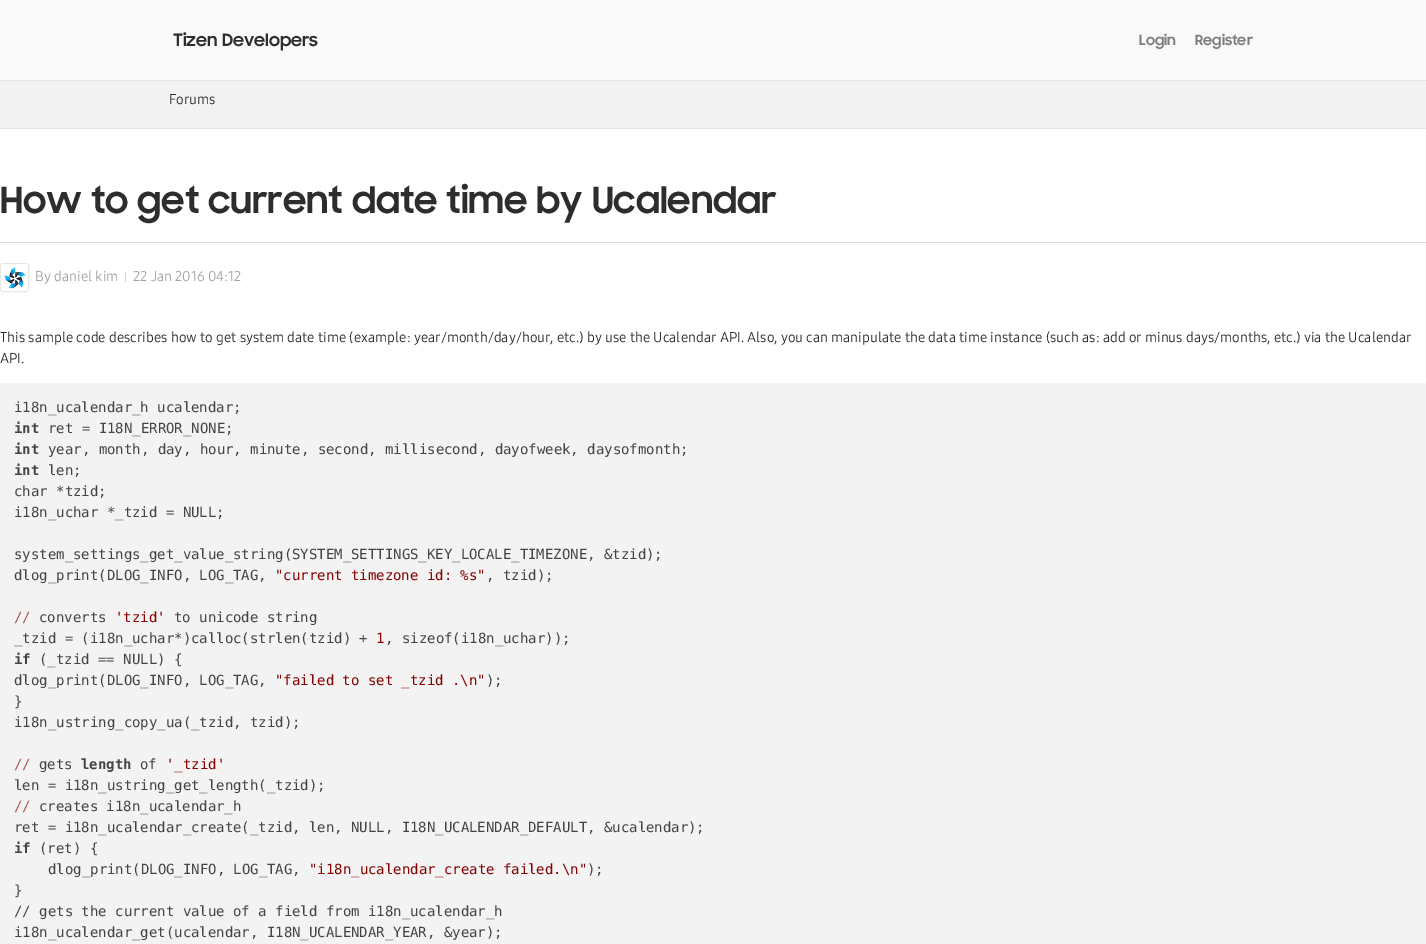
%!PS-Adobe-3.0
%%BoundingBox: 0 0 1426 944
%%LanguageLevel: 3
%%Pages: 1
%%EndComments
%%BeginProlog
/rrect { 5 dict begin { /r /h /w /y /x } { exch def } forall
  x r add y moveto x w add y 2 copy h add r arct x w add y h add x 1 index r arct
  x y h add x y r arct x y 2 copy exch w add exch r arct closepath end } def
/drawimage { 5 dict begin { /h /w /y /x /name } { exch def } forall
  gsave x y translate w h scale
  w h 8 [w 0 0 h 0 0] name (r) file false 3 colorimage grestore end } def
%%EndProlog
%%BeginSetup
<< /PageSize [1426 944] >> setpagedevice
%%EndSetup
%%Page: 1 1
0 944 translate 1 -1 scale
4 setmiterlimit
1 setgray
0 0 1426 944 rectfill
0.976 setgray
0 0 1426 80 rectfill
0.898 setgray
0 80 1426 1 rectfill
0.949 setgray
0 81 1426 47 rectfill
0.898 setgray
0 128 1426 1 rectfill
0.839 setgray
0 242 1426 1 rectfill
0.898 setgray
0.5 263.5 28 28 2.5 rrect stroke
(images/1.raw) 1 264 27 27 drawimage
0.839 setgray
125 272 1 10 rectfill
0.953 setgray
0 383 1426 561 rectfill
/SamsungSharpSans-Bold [17 0 0 -17 0 0] selectfont
0.176 setgray
173 46 moveto (Tizen Developers) show
/SamsungSharpSans-Bold [14 0 0 -14 0 0] selectfont
0.49 0.49 0.494 setrgbcolor
1139 45 moveto (Login) show
1195 45 moveto (Register) show
/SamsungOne-Regular [14 0 0 -14 0 0] selectfont
0.176 setgray
169 104 moveto (Forums) show
/SamsungSharpSans-Bold [36 0 0 -36 0 0] selectfont
0 213 moveto (How to get current date time by Ucalendar) show
/SamsungOne-Regular [14 0 0 -14 0 0] selectfont
0.639 setgray
35 281 moveto (By daniel kim) show
133 281 moveto (22 Jan 2016 04:12) show
0.176 setgray
0 342 moveto (This sample code describes how to get system date time \(example: year/month/day/hour, etc.\) by use the Ucalendar API. Also, you can manipulate the data time instance \(such as: add or minus days/months, etc.\) via the Ucalendar) show
0 363 moveto (API.) show
/DejaVuSansMono-Regular [14 0 0 -14 0 0] selectfont
0.267 setgray
14 412 moveto (i18n_ucalendar_h ucalendar;) show
/DejaVuSansMono-Bold [14 0 0 -14 0 0] selectfont
14 433 moveto (int) show
/DejaVuSansMono-Regular [14 0 0 -14 0 0] selectfont
48 433 moveto (ret = I18N_ERROR_NONE;) show
/DejaVuSansMono-Bold [14 0 0 -14 0 0] selectfont
14 454 moveto (int) show
/DejaVuSansMono-Regular [14 0 0 -14 0 0] selectfont
48 454 moveto (year, month, day, hour, minute, second, millisecond, dayofweek, daysofmonth;) show
/DejaVuSansMono-Bold [14 0 0 -14 0 0] selectfont
14 475 moveto (int) show
/DejaVuSansMono-Regular [14 0 0 -14 0 0] selectfont
48 475 moveto (len;) show
14 496 moveto (char *tzid;) show
14 517 moveto (i18n_uchar *_tzid = NULL;) show
14 559 moveto (system_settings_get_value_string\(SYSTEM_SETTINGS_KEY_LOCALE_TIMEZONE, &tzid\);) show
14 580 moveto (dlog_print\(DLOG_INFO, LOG_TAG,) show
0.533 0 0 setrgbcolor
275 580 moveto ("current timezone id: %s") show
0.267 setgray
486 580 moveto (, tzid\);) show
0.671 0.337 0.337 setrgbcolor
14 622 moveto (//) show
0.267 setgray
39 622 moveto (converts) show
0.533 0 0 setrgbcolor
115 622 moveto ('tzid') show
0.267 setgray
174 622 moveto (to unicode string) show
14 643 moveto (_tzid = \(i18n_uchar*\)calloc\(strlen\(tzid\) +) show
0.533 0 0 setrgbcolor
376 643 moveto (1) show
0.267 setgray
385 643 moveto (, sizeof\(i18n_uchar\)\);) show
/DejaVuSansMono-Bold [14 0 0 -14 0 0] selectfont
14 664 moveto (if) show
/DejaVuSansMono-Regular [14 0 0 -14 0 0] selectfont
39 664 moveto (\(_tzid == NULL\) {) show
14 685 moveto (dlog_print\(DLOG_INFO, LOG_TAG,) show
0.533 0 0 setrgbcolor
275 685 moveto ("failed to set _tzid .\\n") show
0.267 setgray
486 685 moveto (\);) show
14 706 moveto (}) show
14 727 moveto (i18n_ustring_copy_ua\(_tzid, tzid\);) show
0.671 0.337 0.337 setrgbcolor
14 769 moveto (//) show
0.267 setgray
39 769 moveto (gets) show
/DejaVuSansMono-Bold [14 0 0 -14 0 0] selectfont
81 769 moveto (length) show
/DejaVuSansMono-Regular [14 0 0 -14 0 0] selectfont
140 769 moveto (of) show
0.533 0 0 setrgbcolor
166 769 moveto ('_tzid') show
0.267 setgray
14 790 moveto (len = i18n_ustring_get_length\(_tzid\);) show
0.671 0.337 0.337 setrgbcolor
14 811 moveto (//) show
0.267 setgray
39 811 moveto (creates i18n_ucalendar_h) show
14 832 moveto (ret = i18n_ucalendar_create\(_tzid, len, NULL, I18N_UCALENDAR_DEFAULT, &ucalendar\);) show
/DejaVuSansMono-Bold [14 0 0 -14 0 0] selectfont
14 853 moveto (if) show
/DejaVuSansMono-Regular [14 0 0 -14 0 0] selectfont
39 853 moveto (\(ret\) {) show
48 874 moveto (dlog_print\(DLOG_INFO, LOG_TAG,) show
0.533 0 0 setrgbcolor
309 874 moveto ("i18n_ucalendar_create failed.\\n") show
0.267 setgray
587 874 moveto (\);) show
14 895 moveto (}) show
14 916 moveto (// gets the current value of a field from i18n_ucalendar_h) show
14 937 moveto (i18n_ucalendar_get\(ucalendar, I18N_UCALENDAR_YEAR, &year\);) show
showpage
%%EOF
